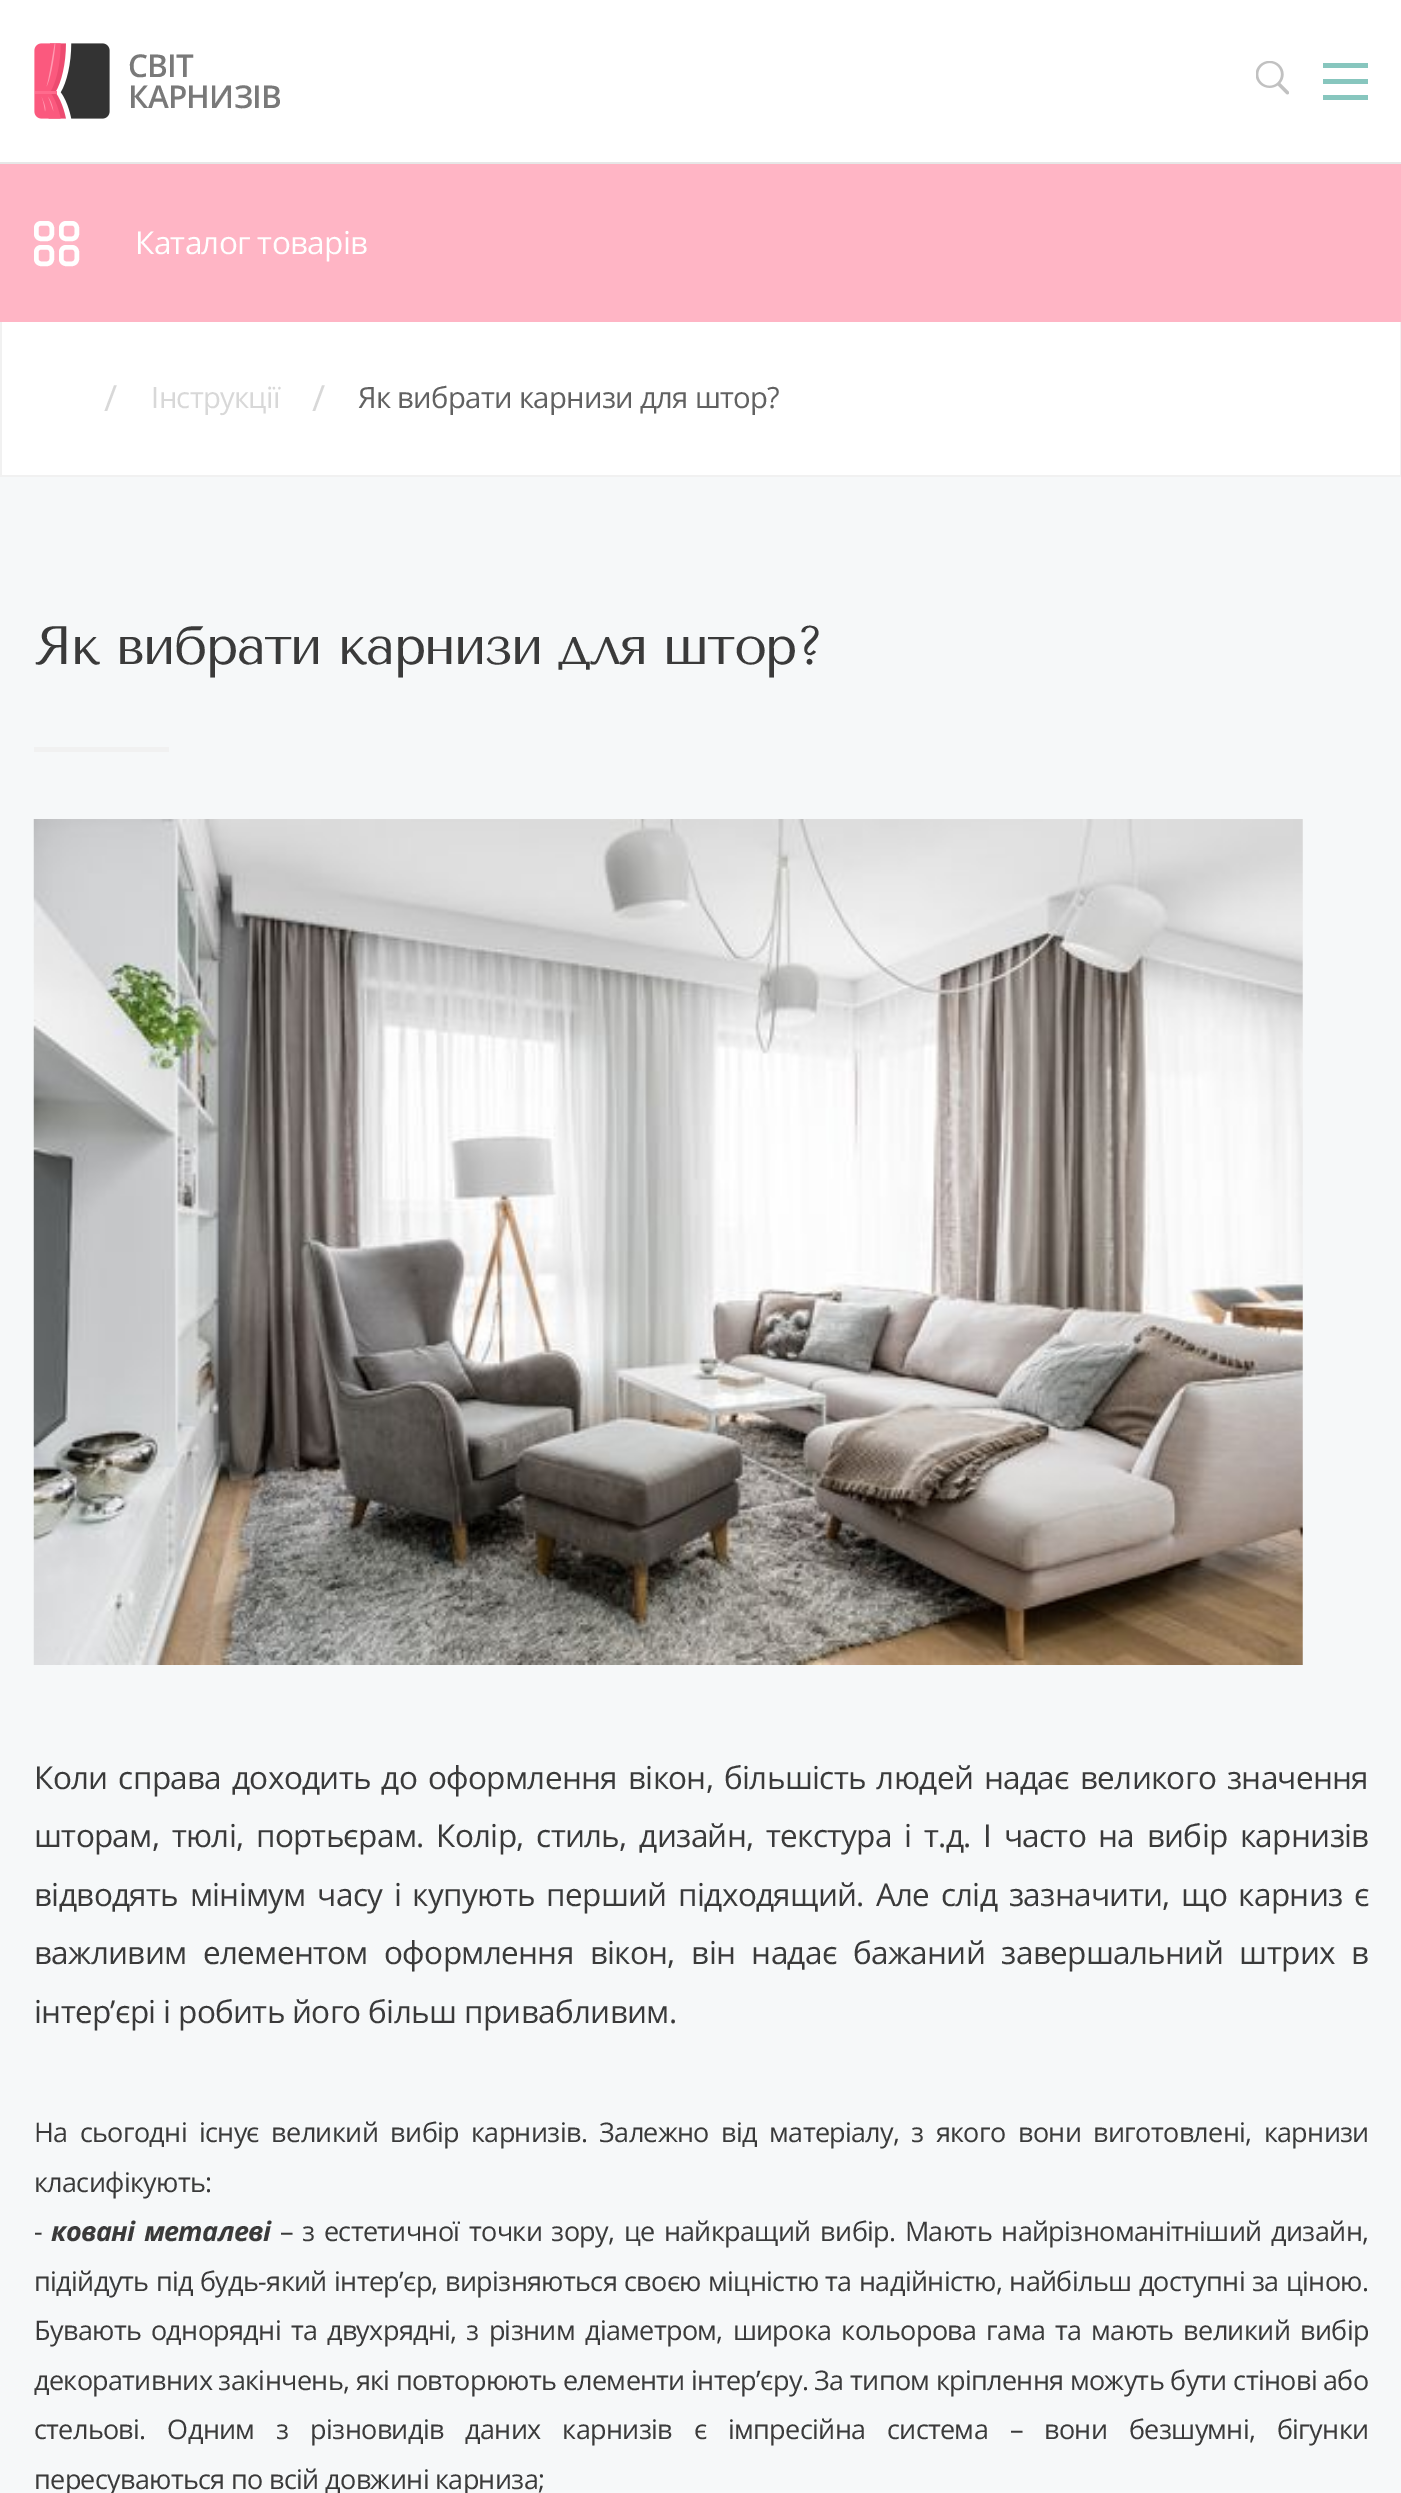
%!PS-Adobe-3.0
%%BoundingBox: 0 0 1401 2493
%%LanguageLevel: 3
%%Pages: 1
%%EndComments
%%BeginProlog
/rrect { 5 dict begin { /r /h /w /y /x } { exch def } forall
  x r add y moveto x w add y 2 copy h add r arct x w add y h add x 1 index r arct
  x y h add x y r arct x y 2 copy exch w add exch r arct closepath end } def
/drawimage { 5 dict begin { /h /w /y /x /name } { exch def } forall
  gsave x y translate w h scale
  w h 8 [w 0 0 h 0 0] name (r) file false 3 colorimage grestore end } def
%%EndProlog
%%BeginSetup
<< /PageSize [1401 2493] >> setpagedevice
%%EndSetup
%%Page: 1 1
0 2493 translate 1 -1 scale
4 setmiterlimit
0.965 0.973 0.976 setrgbcolor
0 0 1401 2493 rectfill
1 setgray
0 0 1401 162 rectfill
0.906 setgray
0 162 1401 2 rectfill
(images/1.raw) 34 43 76 76 drawimage
(images/2.raw) 1256 61 33 34 drawimage
0.529 0.776 0.745 setrgbcolor
1323 79 45 5 rectfill
1323 63 45 5 rectfill
1323 95 45 5 rectfill
0.945 setgray
1400 320 1 157 rectfill
0 475 1401 2 rectfill
0 320 2 157 rectfill
1 0.71 0.773 setrgbcolor
0 164 1401 158 rectfill
1 setgray
4.5 setlinewidth
36.25 247.25 15.5 16.5 4.75 rrect stroke
36.25 223.25 15.5 15.5 4.75 rrect stroke
61.25 223.25 15.5 15.5 4.75 rrect stroke
61.25 247.25 15.5 16.5 4.75 rrect stroke
2 322 1398 153 rectfill
0.945 setgray
34 747 135 5 rectfill
(images/3.raw) 33 819 1270 846 drawimage
/OpenSans-SemiBold [31.5 0 0 -31.5 0 0] selectfont
0.475 setgray
128 77 moveto -0.67 0 (СВІТ) ashow
128 108 moveto -0.67 0 (КАРНИЗІВ) ashow
/OpenSans-Regular [31.5 0 0 -31.5 0 0] selectfont
1 setgray
135 254 moveto -0.67 0 (Каталог товарів) ashow
/OpenSans-Regular [36 0 0 -36 0 0] selectfont
0.847 setgray
104 411 moveto -0.67 0 (/) ashow
/OpenSans-Regular [29.25 0 0 -29.25 0 0] selectfont
151 408 moveto -0.67 0 (Інструкції) ashow
/OpenSans-Regular [36 0 0 -36 0 0] selectfont
312 411 moveto -0.67 0 (/) ashow
/OpenSans-Regular [29.25 0 0 -29.25 0 0] selectfont
0.38 setgray
358 408 moveto -0.67 0 (Як вибрати карнизи для штор?) ashow
/TenorSans-Regular [54 0 0 -54 0 0] selectfont
0.227 setgray
34 664 moveto -1.8 0 (Як вибрати карнизи для штор?) ashow
/OpenSans-Regular [31.5 0 0 -31.5 0 0] selectfont
34 1789 moveto 3.25 0 32 -0.67 0 (Коли справа доходить до оформлення вікон, більшість людей надає великого значення) awidthshow
34 1847 moveto 4.9 0 32 -0.67 0 (шторам, тюлі, портьєрам. Колір, стиль, дизайн, текстура і т.д. І часто на вибір карнизів) awidthshow
34 1906 moveto 4 0 32 -0.67 0 (відводять мінімум часу і купують перший підходящий. Але слід зазначити, що карниз є) awidthshow
34 1964 moveto 8.75 0 32 -0.67 0 (важливим елементом оформлення вікон, він надає бажаний завершальний штрих в) awidthshow
34 2023 moveto -0.67 0 (інтер’єрі і робить його більш привабливим.) ashow
/OpenSans-Regular [27 0 0 -27 0 0] selectfont
34 2142 moveto 5.75 0 32 -0.67 0 (На сьогодні існує великий вибір карнизів. Залежно від матеріалу, з якого вони виготовлені, карнизи) awidthshow
34 2192 moveto -0.67 0 (класифікують:) ashow
34 2241 moveto -0.67 0 (-) ashow
/OpenSans-BoldItalic [27 0 0 -27 0 0] selectfont
51 2241 moveto 3 0 32 -0.67 0 (ковані металеві) awidthshow
/OpenSans-Regular [27 0 0 -27 0 0] selectfont
280 2241 moveto 3 0 32 -0.67 0 (– з естетичної точки зору, це найкращий вибір. Мають найрізноманітніший дизайн,) awidthshow
34 2291 moveto 0.8 0 32 -0.67 0 (підійдуть під будь-який інтер’єр, вирізняються своєю міцністю та надійністю, найбільш доступні за ціною.) awidthshow
34 2340 moveto 3.5 0 32 -0.67 0 (Бувають однорядні та двухрядні, з різним діаметром, широка кольорова гама та мають великий вибір) awidthshow
34 2390 moveto -0.67 0 (декоративних закінчень, які повторюють елементи інтер’єру. За типом кріплення можуть бути стінові або) ashow
34 2439 moveto 15.25 0 32 -0.67 0 (стельові. Одним з різновидів даних карнизів є імпресійна система – вони безшумні, бігунки) awidthshow
34 2489 moveto -0.67 0 (пересуваються по всій довжині карниза;) ashow
showpage
%%EOF
